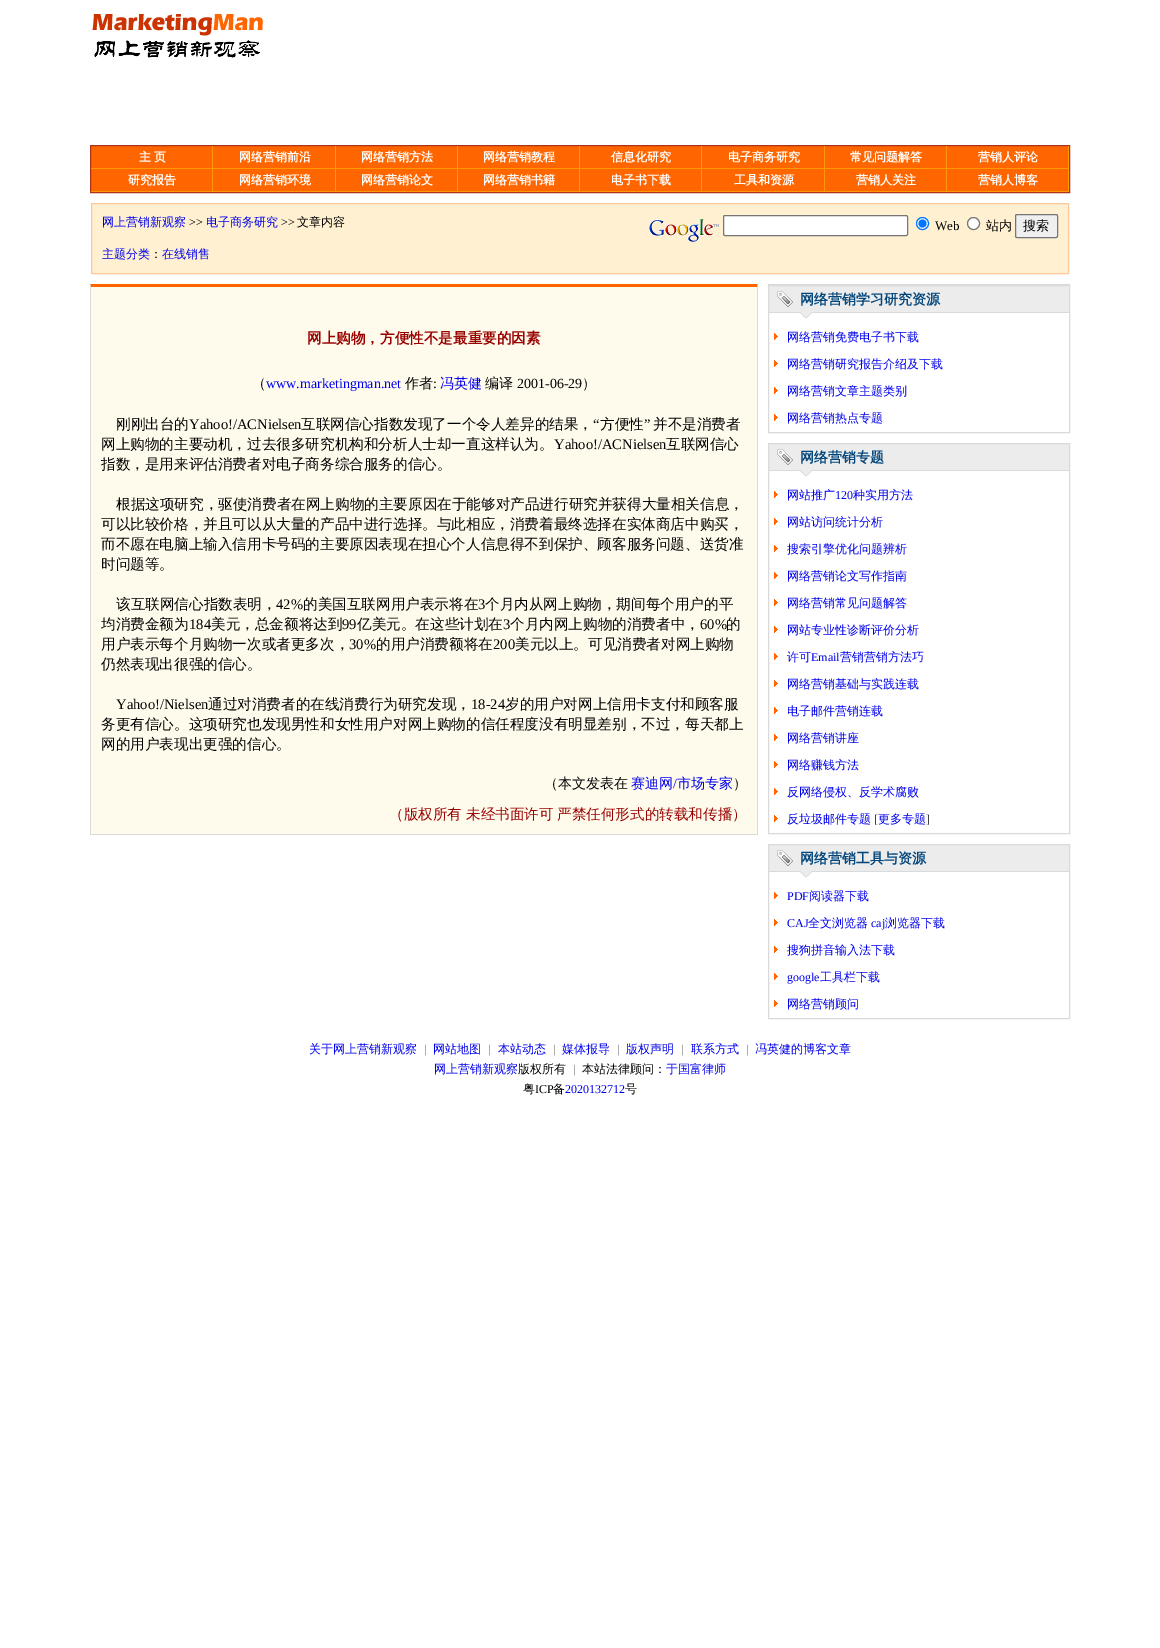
%!PS-Adobe-3.0
%%BoundingBox: 0 0 1160 1648
%%LanguageLevel: 3
%%Pages: 1
%%EndComments
%%BeginProlog
/rrect { 5 dict begin { /r /h /w /y /x } { exch def } forall
  x r add y moveto x w add y 2 copy h add r arct x w add y h add x 1 index r arct
  x y h add x y r arct x y 2 copy exch w add exch r arct closepath end } def
/drawimage { 5 dict begin { /h /w /y /x /name } { exch def } forall
  gsave x y translate w h scale
  w h 8 [w 0 0 h 0 0] name (r) file false 3 colorimage grestore end } def
%%EndProlog
%%BeginSetup
<< /PageSize [1160 1648] >> setpagedevice
%%EndSetup
%%Page: 1 1
0 1648 translate 1 -1 scale
4 setmiterlimit
1 setgray
0 0 1160 1648 rectfill
(images/1.raw) 92 14 171 44 drawimage
1 0.4 0 setrgbcolor
91 146 977 45 rectfill
0.678 0.2 0.106 setrgbcolor
90.5 145.5 979 47 rectstroke
1 0.6 0 setrgbcolor
212 146 1 46 rectfill
91 168 122 1 rectfill
335 146 1 46 rectfill
213 168 123 1 rectfill
457 146 1 46 rectfill
336 168 122 1 rectfill
579 146 1 46 rectfill
458 168 122 1 rectfill
701 146 1 46 rectfill
580 168 122 1 rectfill
824 146 1 46 rectfill
702 168 123 1 rectfill
946 146 1 46 rectfill
825 168 122 1 rectfill
1068 146 1 46 rectfill
947 168 122 1 rectfill
91 191 978 1 rectfill
0.996 0.941 0.816 setrgbcolor
newpath 91.5 203.5 moveto 1068.5 203.5 lineto 1068.5 273.5 lineto 91.5 273.5 lineto closepath gsave fill grestore
0.996 0.78 0.6 setrgbcolor
stroke
(images/2.raw) 649 219 70 23 drawimage
1 setgray
723.5 215.5 184 20 1.5 rrect gsave fill grestore
0.463 setgray
stroke
1 setgray
newpath 922.5 223.5 6 0 360 arc closepath gsave fill grestore
0 0.459 1 setrgbcolor
stroke
newpath 922.5 223.5 4 0 360 arc closepath fill
1 setgray
newpath 973.5 223.5 6 0 360 arc closepath gsave fill grestore
0.463 setgray
stroke
0.937 setgray
1015.5 214.5 42 23 1.5 rrect gsave fill grestore
0.463 setgray
stroke
0.996 0.984 0.925 setrgbcolor
91 287 666 547 rectfill
1 0.4 0 setrgbcolor
newpath 90 284 moveto 758 284 lineto 757 287 lineto 91 287 lineto closepath fill
0.855 setgray
newpath 758 284 moveto 758 835 lineto 757 834 lineto 757 287 lineto closepath fill
90 834 668 1 rectfill
newpath 90 835 moveto 90 284 lineto 91 287 lineto 91 834 lineto closepath fill
768 284 302 1 rectfill
(images/3.raw) 769 286 300 33 drawimage
768.5 285.5 301 147 rectstroke
(images/4.raw) 774 333 4 7 drawimage
(images/4.raw) 774 360 4 7 drawimage
(images/4.raw) 774 387 4 7 drawimage
(images/4.raw) 774 414 4 7 drawimage
(images/3.raw) 769 444 300 33 drawimage
768.5 443.5 301 390 rectstroke
(images/4.raw) 774 491 4 7 drawimage
(images/4.raw) 774 518 4 7 drawimage
(images/4.raw) 774 545 4 7 drawimage
(images/4.raw) 774 572 4 7 drawimage
(images/4.raw) 774 599 4 7 drawimage
(images/4.raw) 774 626 4 7 drawimage
(images/4.raw) 774 653 4 7 drawimage
(images/4.raw) 774 680 4 7 drawimage
(images/4.raw) 774 707 4 7 drawimage
(images/4.raw) 774 734 4 7 drawimage
(images/4.raw) 774 761 4 7 drawimage
(images/4.raw) 774 788 4 7 drawimage
(images/4.raw) 774 815 4 7 drawimage
(images/3.raw) 769 845 300 33 drawimage
768.5 844.5 301 174 rectstroke
(images/4.raw) 774 892 4 7 drawimage
(images/4.raw) 774 919 4 7 drawimage
(images/4.raw) 774 946 4 7 drawimage
(images/4.raw) 774 973 4 7 drawimage
(images/4.raw) 774 1000 4 7 drawimage
/WenQuanYiZenHei-Bold [12 0 0 -12 0 0] selectfont
1 setgray
139 161 moveto -1 0 32 (主 页) widthshow
239 161 moveto (网络营销前沿) show
361 161 moveto (网络营销方法) show
483 161 moveto (网络营销教程) show
611 161 moveto (信息化研究) show
728 161 moveto (电子商务研究) show
850 161 moveto (常见问题解答) show
978 161 moveto (营销人评论) show
128 184 moveto (研究报告) show
239 184 moveto (网络营销环境) show
361 184 moveto (网络营销论文) show
483 184 moveto (网络营销书籍) show
611 184 moveto (电子书下载) show
734 184 moveto (工具和资源) show
856 184 moveto (营销人关注) show
978 184 moveto (营销人博客) show
/WenQuanYiZenHei-Medium [12 0 0 -12 0 0] selectfont
0 0 0.933 setrgbcolor
102 226 moveto (网上营销新观察) show
/LiberationSerif-Regular [12 0 0 -12 0 0] selectfont
0 setgray
189 226 moveto (>>) show
/WenQuanYiZenHei-Medium [12 0 0 -12 0 0] selectfont
0 0 0.933 setrgbcolor
206 226 moveto (电子商务研究) show
/LiberationSerif-Regular [12 0 0 -12 0 0] selectfont
0 setgray
281 226 moveto (>>) show
/WenQuanYiZenHei-Medium [12 0 0 -12 0 0] selectfont
297 226 moveto (文章内容) show
/LiberationSerif-Regular [13 0 0 -13 0 0] selectfont
935 230 moveto (Web) show
/WenQuanYiZenHei-Medium [13 0 0 -13 0 0] selectfont
986 230 moveto (站内) show
1023 230 moveto (搜索) show
/WenQuanYiZenHei-Medium [12 0 0 -12 0 0] selectfont
0 0 0.933 setrgbcolor
102 258 moveto (主题分类) show
0 setgray
150 258 moveto (：) show
0 0 0.933 setrgbcolor
162 258 moveto (在线销售) show
/WenQuanYiZenHei-Bold [14.6 0 0 -14.6 0 0] selectfont
0.6 0 0 setrgbcolor
307 343 moveto (网上购物，方便性不是最重要的因素) show
/WenQuanYiZenHei-Medium [14 0 0 -14 0 0] selectfont
0 setgray
252 388 moveto (（) show
/LiberationSerif-Regular [14 0 0 -14 0 0] selectfont
0 0 0.933 setrgbcolor
266 388 moveto (www.marketingman.net) show
/WenQuanYiZenHei-Medium [14 0 0 -14 0 0] selectfont
0 setgray
405 388 moveto (作者) show
/LiberationSerif-Regular [14 0 0 -14 0 0] selectfont
433 388 moveto (:) show
/WenQuanYiZenHei-Medium [14 0 0 -14 0 0] selectfont
0 0 0.933 setrgbcolor
440 388 moveto (冯英健) show
0 setgray
485 388 moveto (编译) show
/LiberationSerif-Regular [14 0 0 -14 0 0] selectfont
517 388 moveto (2001-06-29) show
/WenQuanYiZenHei-Medium [14 0 0 -14 0 0] selectfont
582 388 moveto (）) show
/WenQuanYiZenHei-Medium [14.6 0 0 -14.6 0 0] selectfont
116 429 moveto (刚刚出台的) show
/LiberationSerif-Regular [14.6 0 0 -14.6 0 0] selectfont
189 429 moveto (Yahoo!/ACNielsen) show
/WenQuanYiZenHei-Medium [14.6 0 0 -14.6 0 0] selectfont
301 429 moveto (互联网信心指数发现了一个令人差异的结果，) show
/LiberationSerif-Regular [14.6 0 0 -14.6 0 0] selectfont
593 429 moveto (“) show
/WenQuanYiZenHei-Medium [14.6 0 0 -14.6 0 0] selectfont
600 429 moveto (方便性) show
/LiberationSerif-Regular [14.6 0 0 -14.6 0 0] selectfont
644 429 moveto (”) show
/WenQuanYiZenHei-Medium [14.6 0 0 -14.6 0 0] selectfont
653 429 moveto (并不是消费者) show
101 449 moveto (网上购物的主要动机，过去很多研究机构和分析人士却一直这样认为。) show
/LiberationSerif-Regular [14.6 0 0 -14.6 0 0] selectfont
554 449 moveto (Yahoo!/ACNielsen) show
/WenQuanYiZenHei-Medium [14.6 0 0 -14.6 0 0] selectfont
666 449 moveto (互联网信心) show
101 469 moveto (指数，是用来评估消费者对电子商务综合服务的信心。) show
116 509 moveto (根据这项研究，驱使消费者在网上购物的主要原因在于能够对产品进行研究并获得大量相关信息，) show
101 529 moveto (可以比较价格，并且可以从大量的产品中进行选择。与此相应，消费着最终选择在实体商店中购买，) show
101 549 moveto (而不愿在电脑上输入信用卡号码的主要原因表现在担心个人信息得不到保护、顾客服务问题、送货准) show
101 569 moveto (时问题等。) show
116 609 moveto (该互联网信心指数表明，) show
/LiberationSerif-Regular [14.6 0 0 -14.6 0 0] selectfont
276 609 moveto (42%) show
/WenQuanYiZenHei-Medium [14.6 0 0 -14.6 0 0] selectfont
303 609 moveto (的美国互联网用户表示将在) show
/LiberationSerif-Regular [14.6 0 0 -14.6 0 0] selectfont
478 609 moveto (3) show
/WenQuanYiZenHei-Medium [14.6 0 0 -14.6 0 0] selectfont
485 609 moveto (个月内从网上购物，期间每个用户的平) show
101 629 moveto (均消费金额为) show
/LiberationSerif-Regular [14.6 0 0 -14.6 0 0] selectfont
189 629 moveto (184) show
/WenQuanYiZenHei-Medium [14.6 0 0 -14.6 0 0] selectfont
211 629 moveto (美元，总金额将达到) show
/LiberationSerif-Regular [14.6 0 0 -14.6 0 0] selectfont
342 629 moveto (99) show
/WenQuanYiZenHei-Medium [14.6 0 0 -14.6 0 0] selectfont
357 629 moveto (亿美元。在这些计划在) show
/LiberationSerif-Regular [14.6 0 0 -14.6 0 0] selectfont
503 629 moveto (3) show
/WenQuanYiZenHei-Medium [14.6 0 0 -14.6 0 0] selectfont
510 629 moveto (个月内网上购物的消费者中，) show
/LiberationSerif-Regular [14.6 0 0 -14.6 0 0] selectfont
700 629 moveto (60%) show
/WenQuanYiZenHei-Medium [14.6 0 0 -14.6 0 0] selectfont
726 629 moveto (的) show
101 649 moveto (用户表示每个月购物一次或者更多次，) show
/LiberationSerif-Regular [14.6 0 0 -14.6 0 0] selectfont
349 649 moveto (30%) show
/WenQuanYiZenHei-Medium [14.6 0 0 -14.6 0 0] selectfont
376 649 moveto (的用户消费额将在) show
/LiberationSerif-Regular [14.6 0 0 -14.6 0 0] selectfont
493 649 moveto (200) show
/WenQuanYiZenHei-Medium [14.6 0 0 -14.6 0 0] selectfont
515 649 moveto (美元以上。可见消费者对网上购物) show
101 669 moveto (仍然表现出很强的信心。) show
/LiberationSerif-Regular [14.6 0 0 -14.6 0 0] selectfont
116 709 moveto (Yahoo!/Nielsen) show
/WenQuanYiZenHei-Medium [14.6 0 0 -14.6 0 0] selectfont
208 709 moveto (通过对消费者的在线消费行为研究发现，) show
/LiberationSerif-Regular [14.6 0 0 -14.6 0 0] selectfont
471 709 moveto (18-24) show
/WenQuanYiZenHei-Medium [14.6 0 0 -14.6 0 0] selectfont
505 709 moveto (岁的用户对网上信用卡支付和顾客服) show
101 729 moveto (务更有信心。这项研究也发现男性和女性用户对网上购物的信任程度没有明显差别，不过，每天都上) show
101 749 moveto (网的用户表现出更强的信心。) show
/WenQuanYiZenHei-Medium [14 0 0 -14 0 0] selectfont
544 788 moveto (（本文发表在) show
0 0 0.933 setrgbcolor
631 788 moveto (赛迪网) show
/LiberationSerif-Regular [14 0 0 -14 0 0] selectfont
673 788 moveto (/) show
/WenQuanYiZenHei-Medium [14 0 0 -14 0 0] selectfont
677 788 moveto (市场专家) show
0 setgray
733 788 moveto (）) show
/WenQuanYiZenHei-Medium [14.6 0 0 -14.6 0 0] selectfont
0.6 0 0 setrgbcolor
389 819 moveto (（版权所有) show
466 819 moveto -1 0 32 (未经书面许可 严禁任何形式的转载和传播）) widthshow
/WenQuanYiZenHei-Bold [14 0 0 -14 0 0] selectfont
0.016 0.278 0.486 setrgbcolor
800 304 moveto (网络营销学习研究资源) show
/WenQuanYiZenHei-Medium [12 0 0 -12 0 0] selectfont
0 0 0.933 setrgbcolor
787 341 moveto (网络营销免费电子书下载) show
787 368 moveto (网络营销研究报告介绍及下载) show
787 395 moveto (网络营销文章主题类别) show
787 422 moveto (网络营销热点专题) show
/WenQuanYiZenHei-Bold [14 0 0 -14 0 0] selectfont
0.016 0.278 0.486 setrgbcolor
800 462 moveto (网络营销专题) show
/WenQuanYiZenHei-Medium [12 0 0 -12 0 0] selectfont
0 0 0.933 setrgbcolor
787 499 moveto (网站推广) show
/LiberationSerif-Regular [12 0 0 -12 0 0] selectfont
835 499 moveto (120) show
/WenQuanYiZenHei-Medium [12 0 0 -12 0 0] selectfont
853 499 moveto (种实用方法) show
787 526 moveto (网站访问统计分析) show
787 553 moveto (搜索引擎优化问题辨析) show
787 580 moveto (网络营销论文写作指南) show
787 607 moveto (网络营销常见问题解答) show
787 634 moveto (网站专业性诊断评价分析) show
787 661 moveto (许可) show
/LiberationSerif-Regular [12 0 0 -12 0 0] selectfont
811 661 moveto (Email) show
/WenQuanYiZenHei-Medium [12 0 0 -12 0 0] selectfont
840 661 moveto (营销营销方法巧) show
787 688 moveto (网络营销基础与实践连载) show
787 715 moveto (电子邮件营销连载) show
787 742 moveto (网络营销讲座) show
787 769 moveto (网络赚钱方法) show
787 796 moveto (反网络侵权、反学术腐败) show
787 823 moveto (反垃圾邮件专题) show
/LiberationSerif-Regular [12 0 0 -12 0 0] selectfont
0 setgray
874 823 moveto ([) show
/WenQuanYiZenHei-Medium [12 0 0 -12 0 0] selectfont
0 0 0.933 setrgbcolor
878 823 moveto (更多专题) show
/LiberationSerif-Regular [12 0 0 -12 0 0] selectfont
0 setgray
926 823 moveto (]) show
/WenQuanYiZenHei-Bold [14 0 0 -14 0 0] selectfont
0.016 0.278 0.486 setrgbcolor
800 863 moveto (网络营销工具与资源) show
/LiberationSerif-Regular [12 0 0 -12 0 0] selectfont
0 0 0.933 setrgbcolor
787 900 moveto (PDF) show
/WenQuanYiZenHei-Medium [12 0 0 -12 0 0] selectfont
809 900 moveto (阅读器下载) show
/LiberationSerif-Regular [12 0 0 -12 0 0] selectfont
787 927 moveto (CAJ) show
/WenQuanYiZenHei-Medium [12 0 0 -12 0 0] selectfont
808 927 moveto (全文浏览器) show
/LiberationSerif-Regular [12 0 0 -12 0 0] selectfont
871 927 moveto (caj) show
/WenQuanYiZenHei-Medium [12 0 0 -12 0 0] selectfont
885 927 moveto (浏览器下载) show
787 954 moveto (搜狗拼音输入法下载) show
/LiberationSerif-Regular [12 0 0 -12 0 0] selectfont
787 981 moveto (google) show
/WenQuanYiZenHei-Medium [12 0 0 -12 0 0] selectfont
820 981 moveto (工具栏下载) show
787 1008 moveto (网络营销顾问) show
309 1053 moveto (关于网上营销新观察) show
/LiberationSerif-Regular [12 0 0 -12 0 0] selectfont
0.4 setgray
424 1053 moveto (|) show
/WenQuanYiZenHei-Medium [12 0 0 -12 0 0] selectfont
0 0 0.933 setrgbcolor
433 1053 moveto (网站地图) show
/LiberationSerif-Regular [12 0 0 -12 0 0] selectfont
0.4 setgray
488 1053 moveto (|) show
/WenQuanYiZenHei-Medium [12 0 0 -12 0 0] selectfont
0 0 0.933 setrgbcolor
498 1053 moveto (本站动态) show
/LiberationSerif-Regular [12 0 0 -12 0 0] selectfont
0.4 setgray
553 1053 moveto (|) show
/WenQuanYiZenHei-Medium [12 0 0 -12 0 0] selectfont
0 0 0.933 setrgbcolor
562 1053 moveto (媒体报导) show
/LiberationSerif-Regular [12 0 0 -12 0 0] selectfont
0.4 setgray
617 1053 moveto (|) show
/WenQuanYiZenHei-Medium [12 0 0 -12 0 0] selectfont
0 0 0.933 setrgbcolor
626 1053 moveto (版权声明) show
/LiberationSerif-Regular [12 0 0 -12 0 0] selectfont
0.4 setgray
681 1053 moveto (|) show
/WenQuanYiZenHei-Medium [12 0 0 -12 0 0] selectfont
0 0 0.933 setrgbcolor
691 1053 moveto (联系方式) show
/LiberationSerif-Regular [12 0 0 -12 0 0] selectfont
0.4 setgray
746 1053 moveto (|) show
/WenQuanYiZenHei-Medium [12 0 0 -12 0 0] selectfont
0 0 0.933 setrgbcolor
755 1053 moveto (冯英健的博客文章) show
434 1073 moveto (网上营销新观察) show
0 setgray
518 1073 moveto (版权所有) show
/LiberationSerif-Regular [12 0 0 -12 0 0] selectfont
0.4 setgray
573 1073 moveto (|) show
/WenQuanYiZenHei-Medium [12 0 0 -12 0 0] selectfont
0 setgray
582 1073 moveto (本站法律顾问：) show
0 0 0.933 setrgbcolor
666 1073 moveto (于国富律师) show
0 setgray
523 1093 moveto (粤) show
/LiberationSerif-Regular [12 0 0 -12 0 0] selectfont
535 1093 moveto (ICP) show
/WenQuanYiZenHei-Medium [12 0 0 -12 0 0] selectfont
553 1093 moveto (备) show
/LiberationSerif-Regular [12 0 0 -12 0 0] selectfont
0 0 0.933 setrgbcolor
565 1093 moveto (2020132712) show
/WenQuanYiZenHei-Medium [12 0 0 -12 0 0] selectfont
0 setgray
625 1093 moveto (号) show
showpage
%%EOF
